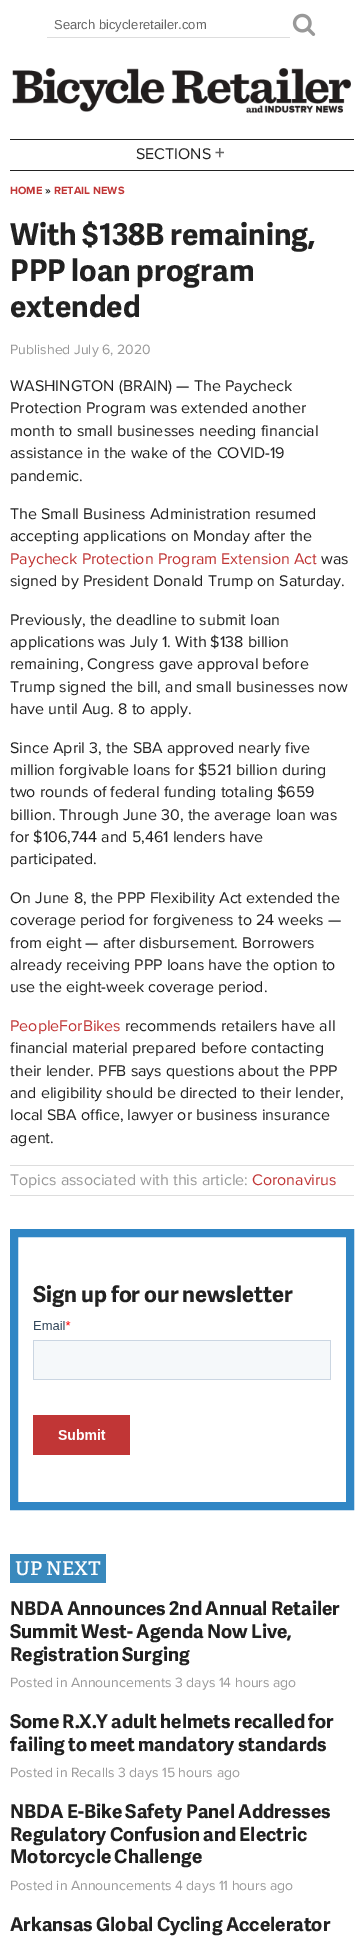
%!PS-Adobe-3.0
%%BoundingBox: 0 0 364 1949
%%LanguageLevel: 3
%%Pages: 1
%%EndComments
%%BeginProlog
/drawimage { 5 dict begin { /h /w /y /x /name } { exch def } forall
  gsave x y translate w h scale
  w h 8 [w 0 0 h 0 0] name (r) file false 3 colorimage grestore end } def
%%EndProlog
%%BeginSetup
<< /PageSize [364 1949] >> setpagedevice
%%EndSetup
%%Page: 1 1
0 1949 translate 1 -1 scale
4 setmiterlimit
1 setgray
0 0 364 1949 rectfill
0.867 setgray
47 37 243 1 rectfill
(images/1.raw) 292 13 24 23 drawimage
(images/2.raw) 12 68 339 45 drawimage
0.133 setgray
10 139 344 1 rectfill
10 170 344 1 rectfill
0.867 setgray
10 1165 344 1 rectfill
10 1195 344 1 rectfill
0.188 0.525 0.773 setrgbcolor
8 setlinewidth
14 1233 336 273 rectstroke
(images/3.raw) 33 1321 298 134 drawimage
0.224 0.537 0.741 setrgbcolor
10 1554 96 29 rectfill
/LiberationSans-Regular [13 0 0 -13 0 0] selectfont
0.4 setgray
54 29 moveto (Search bicycleretailer.com) show
/ProximaNova-Regular [16 0 0 -16 0 0] selectfont
0.133 setgray
136 159 moveto (SECTIONS) show
/ProximaNova-Bold [19 0 0 -19 0 0] selectfont
0.4 setgray
215 159 moveto (+) show
/ProximaNova-Bold [11 0 0 -11 0 0] selectfont
0.757 0.212 0.212 setrgbcolor
10 194 moveto (HOME) show
0.133 setgray
45 194 moveto (») show
0.757 0.212 0.212 setrgbcolor
54 194 moveto (RETAIL NEWS) show
/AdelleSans-Bold [30 0 0 -30 0 0] selectfont
0.133 setgray
10 245 moveto (With $138B remaining,) show
10 281 moveto (PPP loan program) show
10 317 moveto (extended) show
/ProximaNova-Regular [14 0 0 -14 0 0] selectfont
0.6 setgray
10 354 moveto (Published July 6, 2020) show
/ProximaNova-Regular [16 0 0 -16 0 0] selectfont
0.133 setgray
10 391 moveto (WASHINGTON \(BRAIN\) — The Paycheck) show
10 413 moveto (Protection Program was extended another) show
10 436 moveto (month to small businesses needing financial) show
10 458 moveto (assistance in the wake of the COVID-19) show
10 481 moveto (pandemic.) show
10 519 moveto (The Small Business Administration resumed) show
10 541 moveto (accepting applications on Monday after the) show
0.757 0.212 0.212 setrgbcolor
10 564 moveto (Paycheck Protection Program Extension Act) show
0.133 setgray
321 564 moveto (was) show
10 586 moveto (signed by President Donald Trump on Saturday.) show
10 625 moveto (Previously, the deadline to submit loan) show
10 647 moveto (applications was July 1. With $138 billion) show
10 669 moveto (remaining, Congress gave approval before) show
10 692 moveto (Trump signed the bill, and small businesses now) show
10 714 moveto (have until Aug. 8 to apply.) show
10 753 moveto (Since April 3, the SBA approved nearly five) show
10 775 moveto (million forgivable loans for $521 billion during) show
10 797 moveto (two rounds of federal funding totaling $659) show
10 820 moveto (billion. Through June 30, the average loan was) show
10 842 moveto (for $106,744 and 5,461 lenders have) show
10 864 moveto (participated.) show
10 903 moveto (On June 8, the PPP Flexibility Act extended the) show
10 925 moveto (coverage period for forgiveness to 24 weeks —) show
10 948 moveto (from eight — after disbursement. Borrowers) show
10 970 moveto (already receiving PPP loans have the option to) show
10 992 moveto (use the eight-week coverage period.) show
0.757 0.212 0.212 setrgbcolor
10 1031 moveto (PeopleForBikes) show
0.133 setgray
125 1031 moveto (recommends retailers have all) show
10 1053 moveto (financial material prepared before contacting) show
10 1076 moveto (their lender. PFB says questions about the PPP) show
10 1098 moveto (and eligibility should be directed to their lender,) show
10 1120 moveto (local SBA office, lawyer or business insurance) show
10 1143 moveto (agent.) show
0.6 setgray
10 1185 moveto (Topics associated with this article:) show
0.757 0.212 0.212 setrgbcolor
252 1185 moveto (Coronavirus) show
/AdelleSans-Bold [22 0 0 -22 0 0] selectfont
0.133 setgray
33 1302 moveto (Sign up for our newsletter) show
/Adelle-SemiBold [19 0 0 -19 0 0] selectfont
1 setgray
15 1575 moveto (UP NEXT) show
/AdelleSans-Bold [19 0 0 -19 0 0] selectfont
0.133 setgray
10 1615 moveto (NBDA Announces 2nd Annual Retailer) show
10 1638 moveto (Summit West- Agenda Now Live,) show
10 1661 moveto (Registration Surging) show
/ProximaNova-Regular [14 0 0 -14 0 0] selectfont
0.6 setgray
10 1687 moveto (Posted in Announcements 3 days 14 hours ago) show
/AdelleSans-Bold [19 0 0 -19 0 0] selectfont
0.133 setgray
10 1728 moveto (Some R.X.Y adult helmets recalled for) show
10 1751 moveto (failing to meet mandatory standards) show
/ProximaNova-Regular [14 0 0 -14 0 0] selectfont
0.6 setgray
10 1777 moveto (Posted in Recalls 3 days 15 hours ago) show
/AdelleSans-Bold [19 0 0 -19 0 0] selectfont
0.133 setgray
10 1818 moveto (NBDA E-Bike Safety Panel Addresses) show
10 1841 moveto (Regulatory Confusion and Electric) show
10 1863 moveto (Motorcycle Challenge) show
/ProximaNova-Regular [14 0 0 -14 0 0] selectfont
0.6 setgray
10 1890 moveto (Posted in Announcements 4 days 11 hours ago) show
/AdelleSans-Bold [19 0 0 -19 0 0] selectfont
0.133 setgray
10 1931 moveto (Arkansas Global Cycling Accelerator) show
showpage
%%EOF
